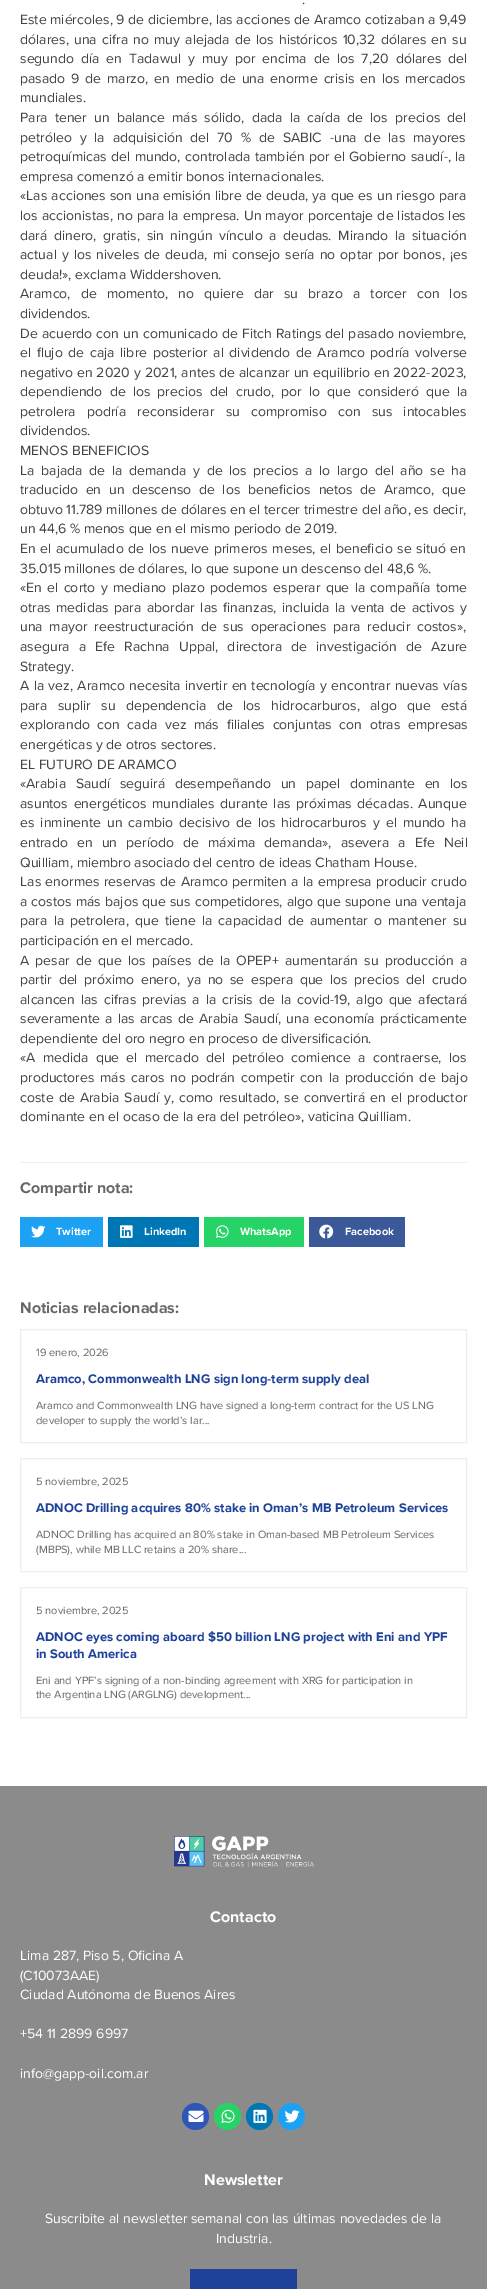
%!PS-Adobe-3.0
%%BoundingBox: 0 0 487 2289
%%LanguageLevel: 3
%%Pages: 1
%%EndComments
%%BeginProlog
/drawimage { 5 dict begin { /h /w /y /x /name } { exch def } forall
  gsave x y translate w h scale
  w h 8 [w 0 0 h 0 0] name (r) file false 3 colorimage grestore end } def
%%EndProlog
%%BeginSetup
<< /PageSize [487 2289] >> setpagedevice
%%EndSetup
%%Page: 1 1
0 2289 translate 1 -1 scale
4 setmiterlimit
1 setgray
0 0 487 2289 rectfill
0.933 setgray
20 1162 447 1 rectfill
0.114 0.631 0.949 setrgbcolor
20 1217 83 30 rectfill
(images/1.raw) 31 1225 15 13 drawimage
0 0.467 0.71 setrgbcolor
108 1217 91 30 rectfill
(images/2.raw) 120 1225 13 13 drawimage
0.145 0.827 0.4 setrgbcolor
204 1217 100 30 rectfill
(images/3.raw) 216 1225 13 13 drawimage
0.231 0.349 0.596 setrgbcolor
309 1217 96 30 rectfill
(images/4.raw) 319 1224 15 15 drawimage
0.933 setgray
20.5 1329.5 446 113 rectstroke
20.5 1458.5 446 113 rectstroke
20.5 1587.5 446 130 rectstroke
0.545 setgray
0 1786 487 503 rectfill
(images/5.raw) 174 1836 140 31 drawimage
0.18 0.337 0.722 setrgbcolor
newpath 195.5 2116.5 13.5 0 360 arc closepath fill
(images/6.raw) 188 2110 16 12 drawimage
0.145 0.827 0.4 setrgbcolor
newpath 227.5 2116.5 13.5 0 360 arc closepath fill
(images/7.raw) 221 2109 14 14 drawimage
0 0.467 0.71 setrgbcolor
newpath 259.5 2116.5 13.5 0 360 arc closepath fill
(images/8.raw) 253 2109 14 14 drawimage
0.114 0.631 0.949 setrgbcolor
newpath 291.5 2116.5 13.5 0 360 arc closepath fill
(images/9.raw) 284 2110 16 13 drawimage
0.118 0.259 0.604 setrgbcolor
190 2269 107 20 rectfill
/ProximaNova-Regular [14 0 0 -14 0 0] selectfont
0.259 setgray
302 4 moveto (.) show
20 24 moveto (Este miércoles, 9 de diciembre, las acciones de Aramco cotizaban a 9,49) show
20 44 moveto 1.6 0 32 (dólares, una cifra no muy alejada de los históricos 10,32 dólares en su) widthshow
20 63 moveto 3.4 0 32 (segundo día en Tadawul y muy por encima de los 7,20 dólares del) widthshow
20 83 moveto 2.25 0 32 (pasado 9 de marzo, en medio de una enorme crisis en los mercados) widthshow
20 102 moveto (mundiales.) show
20 122 moveto 3.5 0 32 (Para tener un balance más sólido, dada la caída de los precios del) widthshow
20 142 moveto 4.25 0 32 (petróleo y la adquisición del 70 % de SABIC -una de las mayores) widthshow
20 161 moveto 0.75 0 32 (petroquímicas del mundo, controlada también por el Gobierno saudí-, la) widthshow
20 181 moveto (empresa comenzó a emitir bonos internacionales.) show
20 200 moveto 0.5 0 32 («Las acciones son una emisión libre de deuda, ya que es un riesgo para) widthshow
20 220 moveto 0.5 0 32 (los accionistas, no para la empresa. Un mayor porcentaje de listados les) widthshow
20 240 moveto 2.9 0 32 (dará dinero, gratis, sin ningún vínculo a deudas. Mirando la situación) widthshow
20 259 moveto 1.4 0 32 (actual y los niveles de deuda, mi consejo sería no optar por bonos, ¡es) widthshow
20 279 moveto (deuda!», exclama Widdershoven.) show
20 298 moveto 6.5 0 32 (Aramco, de momento, no quiere dar su brazo a torcer con los) widthshow
20 318 moveto (dividendos.) show
20 338 moveto 0.5 0 32 (De acuerdo con un comunicado de Fitch Ratings del pasado noviembre,) widthshow
20 357 moveto 2 0 32 (el flujo de caja libre posterior al dividendo de Aramco podría volverse) widthshow
20 377 moveto 0.25 0 32 (negativo en 2020 y 2021, antes de alcanzar un equilibrio en 2022-2023,) widthshow
20 396 moveto 3.5 0 32 (dependiendo de los precios del crudo, por lo que consideró que la) widthshow
20 416 moveto 7.5 0 32 (petrolera podría reconsiderar su compromiso con sus intocables) widthshow
20 435 moveto (dividendos.) show
20 455 moveto (MENOS BENEFICIOS) show
20 475 moveto 3 0 32 (La bajada de la demanda y de los precios a lo largo del año se ha) widthshow
20 494 moveto 4 0 32 (traducido en un descenso de los beneficios netos de Aramco, que) widthshow
20 514 moveto 0.1 0 32 (obtuvo 11.789 millones de dólares en el tercer trimestre del año, es decir,) widthshow
20 533 moveto (un 44,6 % menos que en el mismo periodo de 2019.) show
20 553 moveto 1 0 32 (En el acumulado de los nueve primeros meses, el beneficio se situó en) widthshow
20 573 moveto (35.015 millones de dólares, lo que supone un descenso del 48,6 %.) show
20 592 moveto 1.75 0 32 («En el corto y mediano plazo podemos esperar que la compañía tome) widthshow
20 612 moveto 1.9 0 32 (otras medidas para abordar las finanzas, incluida la venta de activos y) widthshow
20 631 moveto 3 0 32 (una mayor reestructuración de sus operaciones para reducir costos»,) widthshow
20 651 moveto 5.5 0 32 (asegura a Efe Rachna Uppal, directora de investigación de Azure) widthshow
20 671 moveto (Strategy.) show
20 690 moveto 0.75 0 32 (A la vez, Aramco necesita invertir en tecnología y encontrar nuevas vías) widthshow
20 710 moveto 6.75 0 32 (para suplir su dependencia de los hidrocarburos, algo que está) widthshow
20 729 moveto 4 0 32 (explorando con cada vez más filiales conjuntas con otras empresas) widthshow
20 749 moveto (energéticas y de otros sectores.) show
20 769 moveto (EL FUTURO DE ARAMCO) show
20 788 moveto 6 0 32 («Arabia Saudí seguirá desempeñando un papel dominante en los) widthshow
20 808 moveto 2 0 32 (asuntos energéticos mundiales durante las próximas décadas. Aunque) widthshow
20 827 moveto 2.4 0 32 (es inminente un cambio decisivo de los hidrocarburos y el mundo ha) widthshow
20 847 moveto 5.5 0 32 (entrado en un período de máxima demanda», asevera a Efe Neil) widthshow
20 867 moveto (Quilliam, miembro asociado del centro de ideas Chatham House.) show
20 886 moveto 0.75 0 32 (Las enormes reservas de Aramco permiten a la empresa producir crudo) widthshow
20 906 moveto 0.5 0 32 (a costos más bajos que sus competidores, algo que supone una ventaja) widthshow
20 925 moveto 2.5 0 32 (para la petrolera, que tiene la capacidad de aumentar o mantener su) widthshow
20 945 moveto (participación en el mercado.) show
20 965 moveto 2.6 0 32 (A pesar de que los países de la OPEP+ aumentarán su producción a) widthshow
20 984 moveto 3 0 32 (partir del próximo enero, ya no se espera que los precios del crudo) widthshow
20 1004 moveto 2.25 0 32 (alcancen las cifras previas a la crisis de la covid-19, algo que afectará) widthshow
20 1023 moveto 1.5 0 32 (severamente a las arcas de Arabia Saudí, una economía prácticamente) widthshow
20 1043 moveto (dependiente del oro negro en proceso de diversificación.) show
20 1062 moveto 3.6 0 32 («A medida que el mercado del petróleo comience a contraerse, los) widthshow
20 1082 moveto 2 0 32 (productores más caros no podrán competir con la producción de bajo) widthshow
20 1102 moveto 1.5 0 32 (coste de Arabia Saudí y, como resultado, se convertirá en el productor) widthshow
20 1121 moveto (dominante en el ocaso de la era del petróleo», vaticina Quilliam.) show
/ProximaNova-Bold [16 0 0 -16 0 0] selectfont
0.408 setgray
20 1193 moveto (Compartir nota:) show
/ProximaNova-Bold [11 0 0 -11 0 0] selectfont
1 setgray
56 1235 moveto (Twitter) show
144 1235 moveto (LinkedIn) show
240 1235 moveto (WhatsApp) show
345 1235 moveto (Facebook) show
/ProximaNova-Bold [16 0 0 -16 0 0] selectfont
0.408 setgray
20 1313 moveto (Noticias relacionadas:) show
/ProximaNova-Regular [11 0 0 -11 0 0] selectfont
36 1356 moveto (19 enero, 2026) show
/ProximaNova-Bold [13 0 0 -13 0 0] selectfont
0.118 0.259 0.604 setrgbcolor
36 1383 moveto (Aramco, Commonwealth LNG sign long-term supply deal) show
/ProximaNova-Regular [11 0 0 -11 0 0] selectfont
0.408 setgray
36 1409 moveto (Aramco and Commonwealth LNG have signed a long-term contract for the US LNG) show
36 1424 moveto (developer to supply the world’s lar...) show
36 1485 moveto (5 noviembre, 2025) show
/ProximaNova-Bold [13 0 0 -13 0 0] selectfont
0.118 0.259 0.604 setrgbcolor
36 1512 moveto (ADNOC Drilling acquires 80% stake in Oman’s MB Petroleum Services) show
/ProximaNova-Regular [11 0 0 -11 0 0] selectfont
0.408 setgray
36 1538 moveto (ADNOC Drilling has acquired an 80% stake in Oman-based MB Petroleum Services) show
36 1553 moveto (\(MBPS\), while MB LLC retains a 20% share...) show
36 1614 moveto (5 noviembre, 2025) show
/ProximaNova-Bold [13 0 0 -13 0 0] selectfont
0.118 0.259 0.604 setrgbcolor
36 1641 moveto (ADNOC eyes coming aboard $50 billion LNG project with Eni and YPF) show
36 1658 moveto (in South America) show
/ProximaNova-Regular [11 0 0 -11 0 0] selectfont
0.408 setgray
36 1684 moveto (Eni and YPF’s signing of a non-binding agreement with XRG for participation in) show
36 1698 moveto (the Argentina LNG \(ARGLNG\) development...) show
/ProximaNova-Bold [16 0 0 -16 0 0] selectfont
1 setgray
210 1922 moveto (Contacto) show
/ProximaNova-Regular [14 0 0 -14 0 0] selectfont
20 1960 moveto (Lima 287, Piso 5, Oficina A) show
20 1980 moveto (\(C10073AAE\)) show
20 1999 moveto (Ciudad Autónoma de Buenos Aires) show
20 2038 moveto (+54 11 2899 6997) show
20 2078 moveto (info@gapp-oil.com.ar) show
/ProximaNova-Bold [16 0 0 -16 0 0] selectfont
204 2185 moveto (Newsletter) show
/ProximaNova-Regular [14 0 0 -14 0 0] selectfont
45 2223 moveto (Suscribite al newsletter semanal con las últimas novedades de la) show
216 2243 moveto (Industria.) show
showpage
%%EOF
